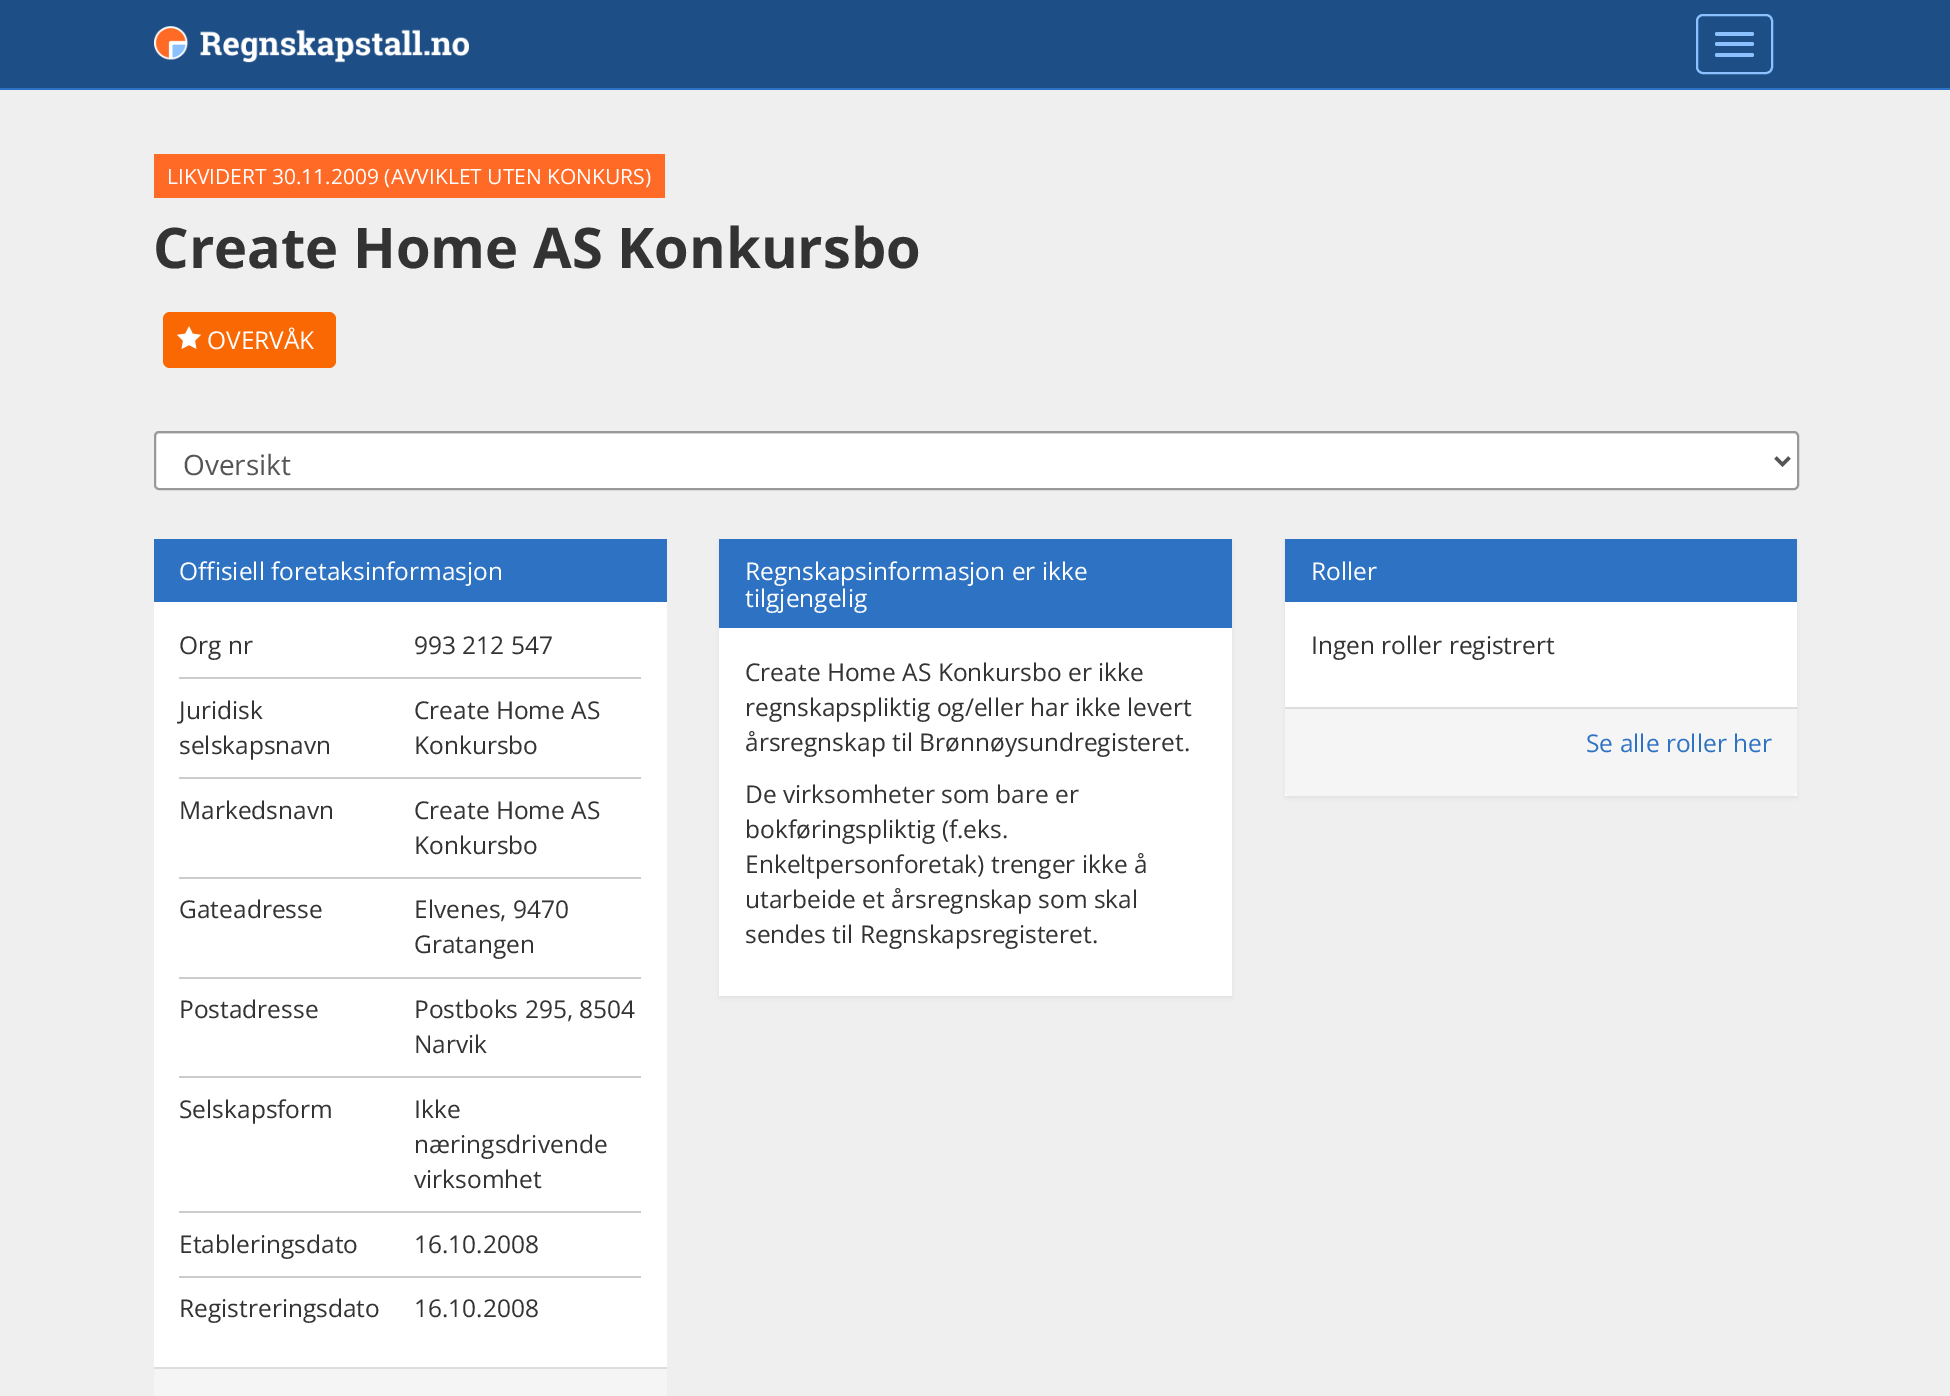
%!PS-Adobe-3.0
%%BoundingBox: 0 0 1950 1396
%%LanguageLevel: 3
%%Pages: 1
%%EndComments
%%BeginProlog
/setalpha { dup .setfillconstantalpha .setstrokeconstantalpha } def
/rrect { 5 dict begin { /r /h /w /y /x } { exch def } forall
  x r add y moveto x w add y 2 copy h add r arct x w add y h add x 1 index r arct
  x y h add x y r arct x y 2 copy exch w add exch r arct closepath end } def
/softshadow { 12 dict begin { /a /b /q /h /w /y /x } { exch def } forall gsave /was 0 def
  9 -2 -9 { dup b mul 4 div /e exch def 1 sub .425 mul 2.718 exch exp 1 add a .99 .min exch div /now exch def
    1 1 now sub 1 was sub div sub setalpha /was now def
    w h .min e 2 mul add 0 gt { x e sub y e sub w e 2 mul add h e 2 mul add
      q e add b .6 mul add w h .min 2 div e add .min 0 .max rrect fill } if } for grestore end } def
/drawimage { 5 dict begin { /h /w /y /x /name } { exch def } forall
  gsave x y translate w h scale
  w h 8 [w 0 0 h 0 0] name (r) file false 3 colorimage grestore end } def
%%EndProlog
%%BeginSetup
<< /PageSize [1950 1396] /PageUsesTransparency true >> setpagedevice
%%EndSetup
%%Page: 1 1
0 .pushpdf14devicefilter
0 1396 translate 1 -1 scale
4 setmiterlimit
0.937 setgray
0 0 1950 1396 rectfill
0.118 0.306 0.525 setrgbcolor
0 0 1950 88 rectfill
0.18 0.451 0.765 setrgbcolor
0 88 1950 2 rectfill
(images/1.raw) 154 26 315 37 drawimage
0.549 0.757 1 setrgbcolor
2 setlinewidth
1697 15 75 58 6 rrect stroke
1715 32 39 4 2 rrect fill
1715 42 39 4 2 rrect fill
1715 53 39 4 2 rrect fill
1 0.416 0.149 setrgbcolor
154 154 511 44 rectfill
0.98 0.408 0.012 setrgbcolor
163 312 173 56 7 rrect fill
(images/2.raw) 176 326 26 23 drawimage
1 setgray
154 431 1645 59 5 rrect fill
0.925 setgray
newpath 159 434 moveto 1794 434 lineto 1796 434 1797 436 1797 438 curveto 1797 435 1797 432 1793 432 curveto 160 432 lineto 156 432 156 435 156 438 curveto 156 436 157 434 159 434 curveto closepath fill
0.6 setgray
155 432 1643 57 4 rrect stroke
0.333 setgray
3.5 setlinewidth
newpath 1775.5 457.5 moveto 1782.5 464.5 lineto 1789.5 457.5 lineto stroke
1 setgray
154 602 513 765 rectfill
0.18 0.451 0.765 setrgbcolor
154 539 513 63 rectfill
0.8 setgray
179 677 462 2 rectfill
179 777 462 2 rectfill
179 877 462 2 rectfill
179 977 462 2 rectfill
179 1076 462 2 rectfill
179 1211 462 2 rectfill
179 1276 462 2 rectfill
0.961 setgray
154 1369 513 27 rectfill
0.867 setgray
154 1367 513 2 rectfill
0 setgray
719 541 513 457 0 2 0.05 softshadow
1 setgray
719 628 513 368 rectfill
0.18 0.451 0.765 setrgbcolor
719 539 513 89 rectfill
0 setgray
1285 541 512 257 0 2 0.05 softshadow
1 setgray
1285 602 512 194 rectfill
0.18 0.451 0.765 setrgbcolor
1285 539 512 63 rectfill
0.961 setgray
newpath 1285 707 moveto 1797 707 lineto 1797 791 lineto 1797 794 1795 796 1792 796 curveto 1290 796 lineto 1287 796 1285 794 1285 791 curveto closepath fill
0.867 setgray
1285 707 512 2 rectfill
/OpenSans-Regular [21 0 0 -21 0 0] selectfont
1 setgray
167 184 moveto (LIKVIDERT 30.11.2009 \(AVVIKLET UTEN KONKURS\)) show
/OpenSans-Bold [56 0 0 -56 0 0] selectfont
0.2 setgray
153 268 moveto (Create Home AS Konkursbo) show
/OpenSans-Regular [24.5 0 0 -24.5 0 0] selectfont
1 setgray
207 349 moveto (OVERVÅK) show
/OpenSans-Regular [28 0 0 -28 0 0] selectfont
0.333 setgray
183 475 moveto (Oversikt) show
/OpenSans-Regular [24.5 0 0 -24.5 0 0] selectfont
1 setgray
179 580 moveto (Offisiell foretaksinformasjon) show
0.2 setgray
179 654 moveto (Org nr) show
414 654 moveto (993 212 547) show
179 719 moveto (Juridisk) show
179 754 moveto (selskapsnavn) show
414 719 moveto (Create Home AS) show
414 754 moveto (Konkursbo) show
179 819 moveto (Markedsnavn) show
414 819 moveto (Create Home AS) show
414 854 moveto (Konkursbo) show
179 918 moveto (Gateadresse) show
414 918 moveto (Elvenes, 9470) show
414 953 moveto (Gratangen) show
179 1018 moveto (Postadresse) show
414 1018 moveto (Postboks 295, 8504) show
414 1053 moveto (Narvik) show
179 1118 moveto (Selskapsform) show
414 1118 moveto (Ikke) show
414 1153 moveto (næringsdrivende) show
414 1188 moveto (virksomhet) show
179 1253 moveto (Etableringsdato) show
414 1253 moveto (16.10.2008) show
179 1317 moveto (Registreringsdato) show
414 1317 moveto (16.10.2008) show
1 setgray
745 580 moveto (Regnskapsinformasjon er ikke) show
745 607 moveto (tilgjengelig) show
0.2 setgray
745 681 moveto (Create Home AS Konkursbo er ikke) show
745 716 moveto (regnskapspliktig og/eller har ikke levert) show
745 751 moveto (årsregnskap til Brønnøysundregisteret.) show
745 803 moveto (De virksomheter som bare er) show
745 838 moveto (bokføringspliktig \(f.eks.) show
745 873 moveto (Enkeltpersonforetak\) trenger ikke å) show
745 908 moveto (utarbeide et årsregnskap som skal) show
745 943 moveto (sendes til Regnskapsregisteret.) show
1 setgray
1311 580 moveto (Roller) show
0.2 setgray
1311 654 moveto (Ingen roller registrert) show
0.18 0.451 0.765 setrgbcolor
1586 752 moveto (Se alle roller her) show
.poppdf14devicefilter showpage
%%EOF
